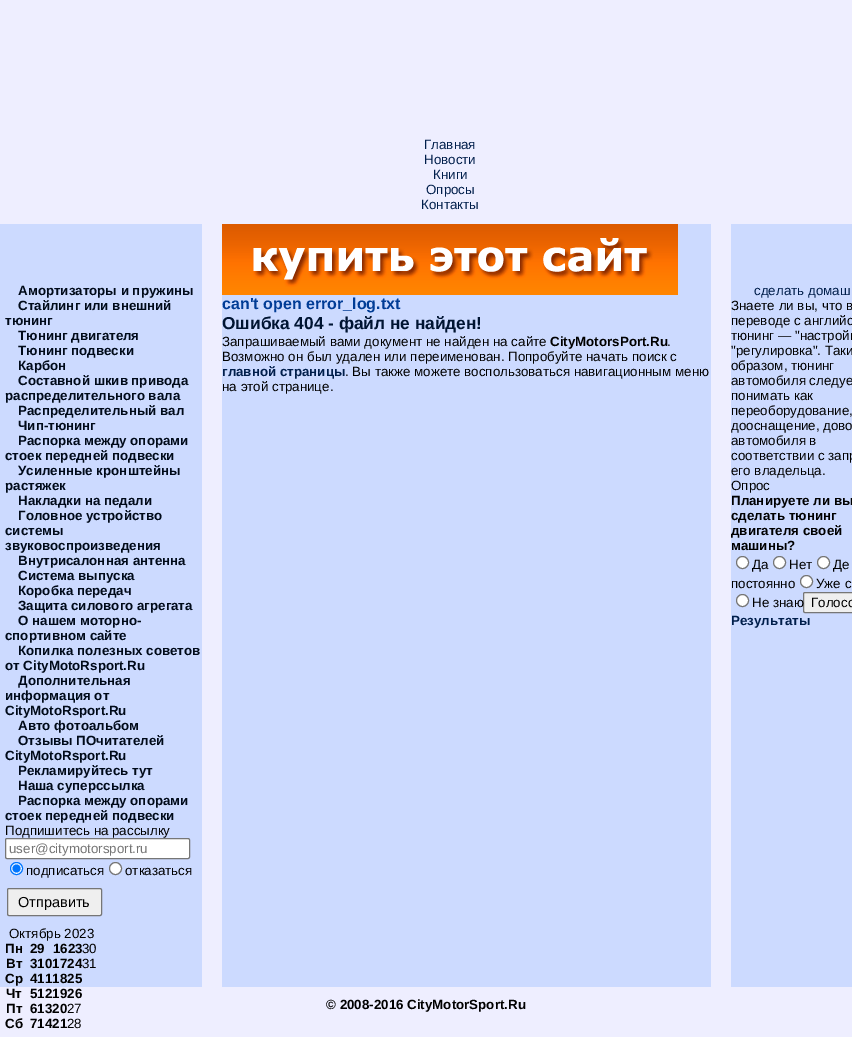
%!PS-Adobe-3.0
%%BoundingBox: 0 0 852 1037
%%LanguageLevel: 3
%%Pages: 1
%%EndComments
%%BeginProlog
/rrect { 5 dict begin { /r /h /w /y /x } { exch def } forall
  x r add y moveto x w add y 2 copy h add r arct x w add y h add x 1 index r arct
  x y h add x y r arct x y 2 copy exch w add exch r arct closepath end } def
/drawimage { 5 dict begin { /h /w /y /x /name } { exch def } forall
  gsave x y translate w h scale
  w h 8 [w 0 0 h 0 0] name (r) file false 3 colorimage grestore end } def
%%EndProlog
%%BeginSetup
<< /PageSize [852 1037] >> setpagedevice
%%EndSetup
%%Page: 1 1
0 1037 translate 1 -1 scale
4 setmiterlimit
0.933 0.933 1 setrgbcolor
0 0 852 1037 rectfill
0.8 0.855 1 setrgbcolor
0 224 202 763 rectfill
1 setgray
5.5 838.5 184 20 1.5 rrect gsave fill grestore
0.463 setgray
stroke
1 setgray
newpath 16.5 868.5 6 0 360 arc closepath gsave fill grestore
0 0.459 1 setrgbcolor
stroke
newpath 16.5 868.5 4 0 360 arc closepath fill
1 setgray
newpath 115.5 868.5 6 0 360 arc closepath gsave fill grestore
0.463 setgray
stroke
0.937 setgray
7.5 888.5 94 27 1.5 rrect gsave fill grestore
0.463 setgray
stroke
0.8 0.855 1 setrgbcolor
222 224 489 763 rectfill
(images/1.raw) 222 224 456 71 drawimage
731 224 121 763 rectfill
1 setgray
newpath 823.5 562.5 6 0 360 arc closepath gsave fill grestore
0.463 setgray
stroke
1 setgray
newpath 742.5 562.5 6 0 360 arc closepath gsave fill grestore
0.463 setgray
stroke
1 setgray
newpath 779.5 562.5 6 0 360 arc closepath gsave fill grestore
0.463 setgray
stroke
1 setgray
newpath 806.5 581.5 6 0 360 arc closepath gsave fill grestore
0.463 setgray
stroke
1 setgray
newpath 742.5 600.5 6 0 360 arc closepath gsave fill grestore
0.463 setgray
stroke
0.937 setgray
803.5 592.5 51 20 1.5 rrect gsave fill grestore
0.463 setgray
stroke
/LiberationSans-Regular [13.35 0 0 -13.35 0 0] selectfont
0 0.118 0.294 setrgbcolor
424 149 moveto (Главная) show
424 164 moveto (Новости) show
433 179 moveto (Книги) show
426 194 moveto (Опросы) show
421 209 moveto (Контакты) show
/LiberationSans-Bold [13.35 0 0 -13.35 0 0] selectfont
0 0.039 0.098 setrgbcolor
18 295 moveto (Амортизаторы и пружины) show
18 310 moveto (Стайлинг или внешний) show
5 325 moveto (тюнинг) show
18 340 moveto (Тюнинг двигателя) show
18 355 moveto (Тюнинг подвески) show
18 370 moveto (Карбон) show
18 385 moveto (Cоставной шкив привода) show
5 400 moveto (распределительного вала) show
18 415 moveto (Распределительный вал) show
18 430 moveto (Чип-тюнинг) show
18 445 moveto (Распорка между опорами) show
5 460 moveto (стоек передней подвески) show
18 475 moveto (Усиленные кронштейны) show
5 490 moveto (растяжек) show
18 505 moveto (Накладки на педали) show
18 520 moveto (Головное устройство) show
5 535 moveto (системы) show
5 550 moveto (звуковоспроизведения) show
18 565 moveto (Внутрисалонная антенна) show
18 580 moveto (Cистема выпуска) show
18 595 moveto (Коробка передач) show
18 610 moveto (Защита силового агрегата) show
18 625 moveto (О нашем моторно-) show
5 640 moveto (спортивном сайте) show
18 655 moveto (Копилка полезных советов) show
5 670 moveto (от CityMotoRsport.Ru) show
18 685 moveto (Дополнительная) show
5 700 moveto (информация от) show
5 715 moveto (CityMotoRsport.Ru) show
18 730 moveto (Авто фотоальбом) show
18 745 moveto (Отзывы ПОчитателей) show
5 760 moveto (CityMotoRsport.Ru) show
18 775 moveto (Рекламируйтесь тут) show
18 790 moveto (Наша суперссылка) show
18 805 moveto (Распорка между опорами) show
5 820 moveto (стоек передней подвески) show
/LiberationSans-Regular [13.35 0 0 -13.35 0 0] selectfont
0 setgray
5 835 moveto (Подпишитесь на рассылку) show
0.459 setgray
9 853 moveto (user@citymotorsport.ru) show
0 setgray
26 875 moveto (подписаться) show
125 875 moveto (отказаться) show
/LiberationSans-Regular [14.5 0 0 -14.5 0 0] selectfont
18 907 moveto (Отправить) show
/LiberationSans-Regular [13.35 0 0 -13.35 0 0] selectfont
9 938 moveto (Октябрь 2023) show
/LiberationSans-Bold [13.35 0 0 -13.35 0 0] selectfont
5 953 moveto (Пн) show
30 953 moveto (29) show
53 953 moveto (1623) show
/LiberationSans-Regular [13.35 0 0 -13.35 0 0] selectfont
82 953 moveto (30) show
/LiberationSans-Bold [13.35 0 0 -13.35 0 0] selectfont
6 968 moveto (Вт) show
30 968 moveto (3101724) show
/LiberationSans-Regular [13.35 0 0 -13.35 0 0] selectfont
82 968 moveto (31) show
/LiberationSans-Bold [13.35 0 0 -13.35 0 0] selectfont
5 983 moveto (Ср) show
30 983 moveto (4111825) show
6 998 moveto (Чт) show
30 998 moveto (5121926) show
6 1013 moveto (Пт) show
30 1013 moveto (61320) show
/LiberationSans-Regular [13.35 0 0 -13.35 0 0] selectfont
67 1013 moveto (27) show
/LiberationSans-Bold [13.35 0 0 -13.35 0 0] selectfont
5 1028 moveto (Сб) show
30 1028 moveto (71421) show
/LiberationSans-Regular [13.35 0 0 -13.35 0 0] selectfont
67 1028 moveto (28) show
/LiberationSans-Bold [16 0 0 -16 0 0] selectfont
0 0.235 0.588 setrgbcolor
222 309 moveto (can't open error_log.txt) show
/LiberationSans-Bold [17.3 0 0 -17.3 0 0] selectfont
0 0.078 0.196 setrgbcolor
222 329 moveto (Ошибка 404 - файл не найден!) show
/LiberationSans-Regular [13.35 0 0 -13.35 0 0] selectfont
0 setgray
222 346 moveto (Запрашиваемый вами документ не найден на сайте) show
/LiberationSans-Bold [13.35 0 0 -13.35 0 0] selectfont
550 346 moveto (CityMotorsPort.Ru) show
/LiberationSans-Regular [13.35 0 0 -13.35 0 0] selectfont
667 346 moveto (.) show
222 361 moveto (Возможно он был удален или переименован. Попробуйте начать поиск с) show
/LiberationSans-Bold [13.35 0 0 -13.35 0 0] selectfont
0 0.118 0.294 setrgbcolor
222 376 moveto (главной страницы) show
/LiberationSans-Regular [13.35 0 0 -13.35 0 0] selectfont
0 setgray
345 376 moveto (. Вы также можете воспользоваться навигационным меню) show
222 391 moveto (на этой странице.) show
0 0.118 0.294 setrgbcolor
754 295 moveto (сделать домаш) show
0 setgray
731 310 moveto (Знаете ли вы, что в) show
731 325 moveto (переводе с английс) show
731 340 moveto (тюнинг — "настройк) show
731 355 moveto ("регулировка". Таки) show
731 370 moveto (образом, тюнинг) show
731 385 moveto (автомобиля следуе) show
731 400 moveto (понимать как) show
731 415 moveto (переоборудование,) show
731 430 moveto (дооснащение, дово) show
731 445 moveto (автомобиля в) show
731 460 moveto (соответствии с запр) show
731 475 moveto (его владельца.) show
731 490 moveto (Опрос) show
/LiberationSans-Bold [13.35 0 0 -13.35 0 0] selectfont
731 505 moveto (Планируете ли вы) show
731 520 moveto (сделать тюнинг) show
731 535 moveto (двигателя своей) show
731 550 moveto (машины?) show
/LiberationSans-Regular [13.35 0 0 -13.35 0 0] selectfont
833 569 moveto (Де) show
731 588 moveto (постоянно) show
752 569 moveto (Да) show
789 569 moveto (Нет) show
816 588 moveto (Уже с) show
752 607 moveto (Не знаю) show
811 607 moveto (Голосо) show
/LiberationSans-Bold [13.35 0 0 -13.35 0 0] selectfont
0 0.118 0.294 setrgbcolor
731 625 moveto (Результаты) show
0 setgray
326 1009 moveto (© 2008-2016 CityMotorSport.Ru) show
showpage
%%EOF
